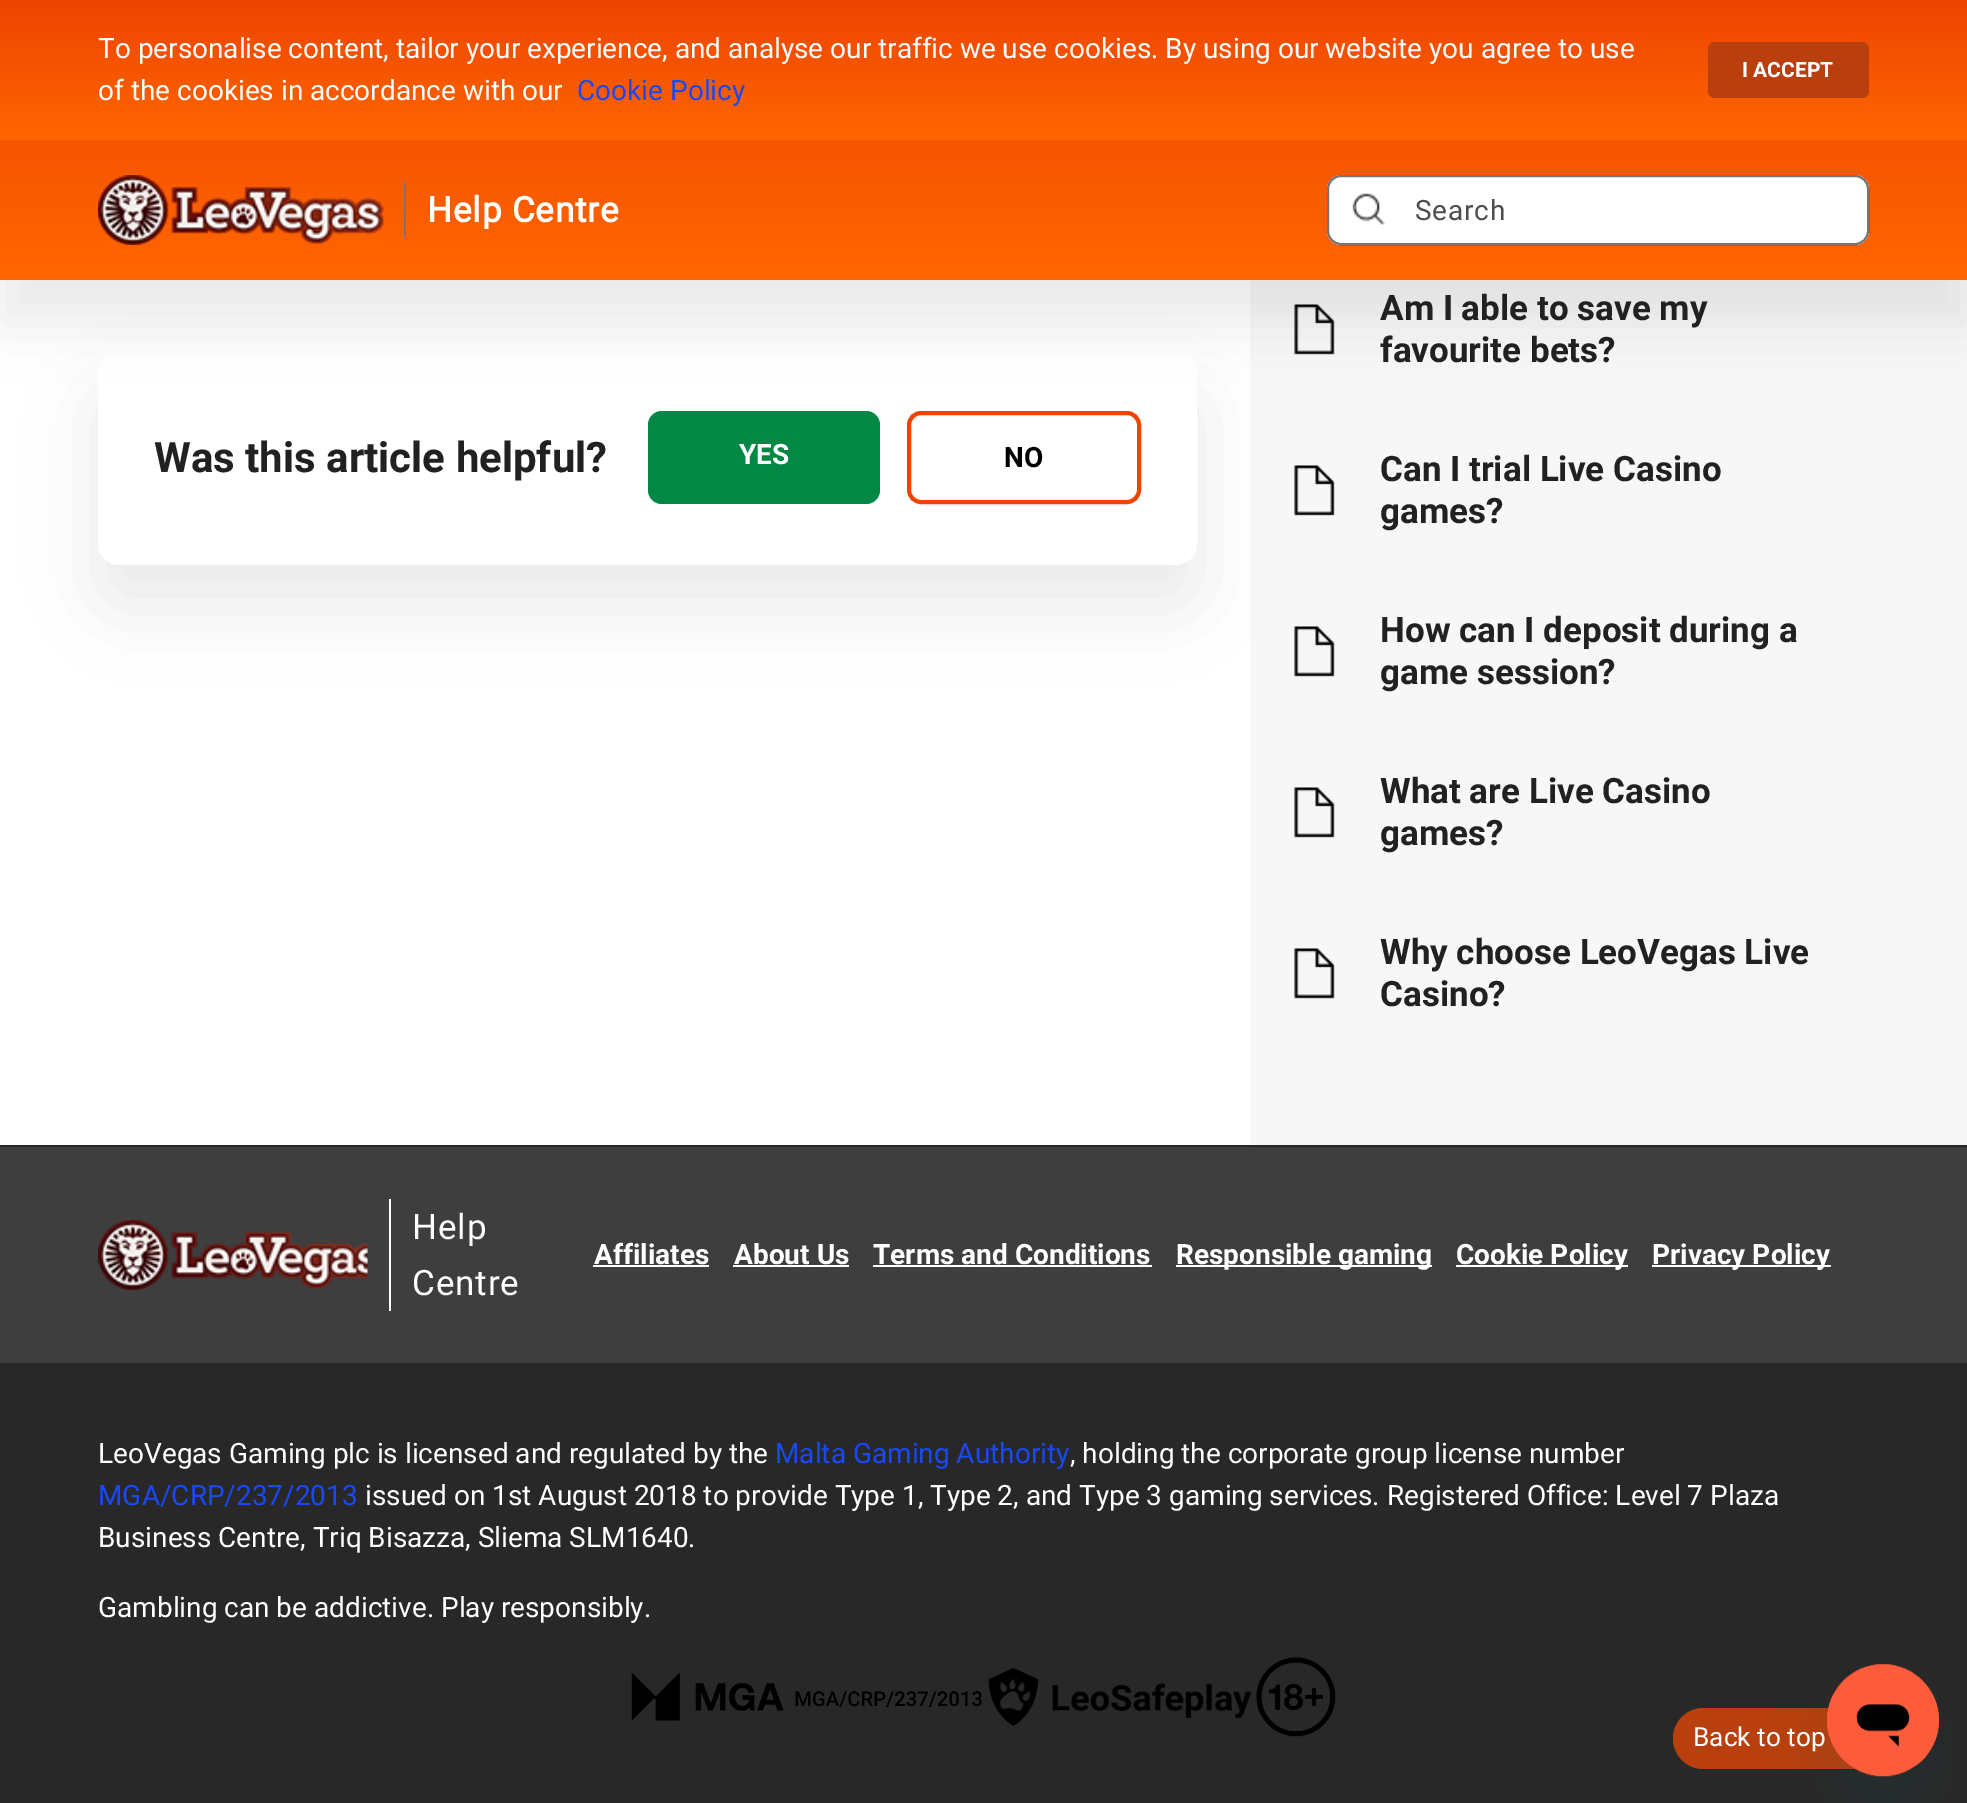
%!PS-Adobe-3.0
%%BoundingBox: 0 0 1967 1803
%%LanguageLevel: 3
%%Pages: 1
%%EndComments
%%BeginProlog
/setalpha { dup .setfillconstantalpha .setstrokeconstantalpha } def
/rrect { 5 dict begin { /r /h /w /y /x } { exch def } forall
  x r add y moveto x w add y 2 copy h add r arct x w add y h add x 1 index r arct
  x y h add x y r arct x y 2 copy exch w add exch r arct closepath end } def
/softshadow { 12 dict begin { /a /b /q /h /w /y /x } { exch def } forall gsave /was 0 def
  9 -2 -9 { dup b mul 4 div /e exch def 1 sub .425 mul 2.718 exch exp 1 add a .99 .min exch div /now exch def
    1 1 now sub 1 was sub div sub setalpha /was now def
    w h .min e 2 mul add 0 gt { x e sub y e sub w e 2 mul add h e 2 mul add
      q e add b .6 mul add w h .min 2 div e add .min 0 .max rrect fill } if } for grestore end } def
/drawimage { 5 dict begin { /h /w /y /x /name } { exch def } forall
  gsave x y translate w h scale
  w h 8 [w 0 0 h 0 0] name (r) file false 3 colorimage grestore end } def
%%EndProlog
%%BeginSetup
<< /PageSize [1967 1803] /PageUsesTransparency true >> setpagedevice
%%EndSetup
%%Page: 1 1
0 .pushpdf14devicefilter
0 1803 translate 1 -1 scale
4 setmiterlimit
1 setgray
0 0 1967 1803 rectfill
0.969 setgray
1869 280 98 865 rectfill
0 setgray
98 392 1099 215 21 35 0.08 softshadow
1 setgray
98 350 1099 215 21 rrect fill
0.969 setgray
1250 280 619 865 rectfill
(images/3.raw) 1294 304 41 51 drawimage
0 setgray
0 42 1967 280 0 26 0.08 softshadow
gsave newpath 0 140 moveto 1967 140 lineto 1967 280 lineto 0 280 lineto closepath clip newpath
<< /ShadingType 2 /ColorSpace /DeviceRGB /Coords [984 0 984 280] /Extend [true true] /Function << /FunctionType 2 /Domain [0 1] /C0 [0.933 0.267 0] /C1 [1 0.4 0] /N 1 >> >> shfill grestore
gsave newpath 0 0 moveto 1967 0 lineto 1967 140 lineto 0 140 lineto closepath clip newpath
<< /ShadingType 2 /ColorSpace /DeviceRGB /Coords [984 0 984 140] /Extend [true true] /Function << /FunctionType 2 /Domain [0 1] /C0 [0.933 0.267 0] /C1 [1 0.4 0] /N 1 >> >> shfill grestore
0.725 0.251 0.055 setrgbcolor
1708 42 161 56 7 rrect fill
(images/1.raw) 98 175 286 70 drawimage
0.459 setgray
404 182 2 56 rectfill
1 setgray
1327 175 542 70 14 rrect fill
0.54 setalpha
0 setgray
2 setlinewidth
1328 176 540 68 13 rrect stroke
1 setalpha
(images/2.raw) 1352 193 33 32 drawimage
0 0.533 0.267 setrgbcolor
648 411 232 93 14 rrect fill
0.933 0.267 0 setrgbcolor
4 setlinewidth
909 413 230 89 12 rrect stroke
(images/3.raw) 1294 465 41 51 drawimage
(images/3.raw) 1294 626 41 51 drawimage
(images/3.raw) 1294 787 41 51 drawimage
(images/3.raw) 1294 948 41 51 drawimage
0.243 setgray
0 1147 1967 216 rectfill
0.157 setgray
0 1145 1967 2 rectfill
(images/4.raw) 98 1220 270 70 drawimage
1 setgray
389 1199 2 112 rectfill
593 1265 116 2 rectfill
733 1265 116 2 rectfill
873 1265 279 2 rectfill
1176 1265 256 2 rectfill
1456 1265 172 2 rectfill
1652 1265 179 2 rectfill
0.157 setgray
0 1363 1967 440 rectfill
(images/5.raw) 631 1673 351 48 drawimage
(images/6.raw) 988 1668 264 58 drawimage
(images/7.raw) 1256 1657 80 80 drawimage
0.725 0.251 0.055 setrgbcolor
1673 1708 259 61 30.5 rrect fill
0.09 0.286 0.302 setrgbcolor
1827 1699 112 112 56 26 0.15 softshadow
(images/8.raw) 1827 1664 112 113 drawimage
/Roboto-Regular [28 0 0 -28 0 0] selectfont
1 setgray
98 58 moveto (To personalise content, tailor your experience, and analyse our traffic we use cookies. By using our website you agree to use) show
98 100 moveto (of the cookies in accordance with our) show
0.094 0.282 0.969 setrgbcolor
577 100 moveto (Cookie Policy) show
/Roboto-Bold [21 0 0 -21 0 0] selectfont
1 setgray
1742 77 moveto (I ACCEPT) show
/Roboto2-Bold [35 0 0 -35 0 0] selectfont
427 222 moveto 0.9 0 (Help Centre) ashow
/Roboto-Regular [28 0 0 -28 0 0] selectfont
0.302 setgray
1415 220 moveto 0.75 0 (Search) ashow
/Roboto-Bold [42 0 0 -42 0 0] selectfont
0.129 setgray
154 472 moveto (Was this article helpful?) show
/Roboto-Bold [28 0 0 -28 0 0] selectfont
1 setgray
739 464 moveto (YES) show
0 setgray
1004 467 moveto (NO) show
/Roboto-Bold [35 0 0 -35 0 0] selectfont
0.129 setgray
1380 320 moveto (Am I able to save my) show
1380 362 moveto (favourite bets?) show
1380 481 moveto (Can I trial Live Casino) show
1380 523 moveto (games?) show
1380 642 moveto (How can I deposit during a) show
1380 684 moveto (game session?) show
1380 803 moveto (What are Live Casino) show
1380 845 moveto (games?) show
1380 964 moveto (Why choose LeoVegas Live) show
1380 1006 moveto (Casino?) show
/Roboto-Regular [35 0 0 -35 0 0] selectfont
1 setgray
412 1239 moveto 0.9 0 (Help) ashow
412 1295 moveto 0.9 0 (Centre) ashow
/Roboto-Bold [28 0 0 -28 0 0] selectfont
594 1264 moveto (Affiliates) show
734 1264 moveto (About Us) show
873 1264 moveto (Terms and Conditions) show
1176 1264 moveto (Responsible gaming) show
1456 1264 moveto (Cookie Policy) show
1652 1264 moveto (Privacy Policy) show
/Roboto-Regular [28 0 0 -28 0 0] selectfont
98 1463 moveto (LeoVegas Gaming plc is licensed and regulated by the) show
0.094 0.282 0.969 setrgbcolor
775 1463 moveto (Malta Gaming Authority) show
1 setgray
1070 1463 moveto (, holding the corporate group license number) show
0.094 0.282 0.969 setrgbcolor
98 1505 moveto (MGA/CRP/237/2013) show
1 setgray
365 1505 moveto (issued on 1st August 2018 to provide Type 1, Type 2, and Type 3 gaming services. Registered Office: Level 7 Plaza) show
98 1547 moveto (Business Centre, Triq Bisazza, Sliema SLM1640.) show
98 1617 moveto (Gambling can be addictive. Play responsibly.) show
/Roboto-Regular [26.25 0 0 -26.25 0 0] selectfont
1693 1746 moveto (Back to top) show
.poppdf14devicefilter showpage
%%EOF
